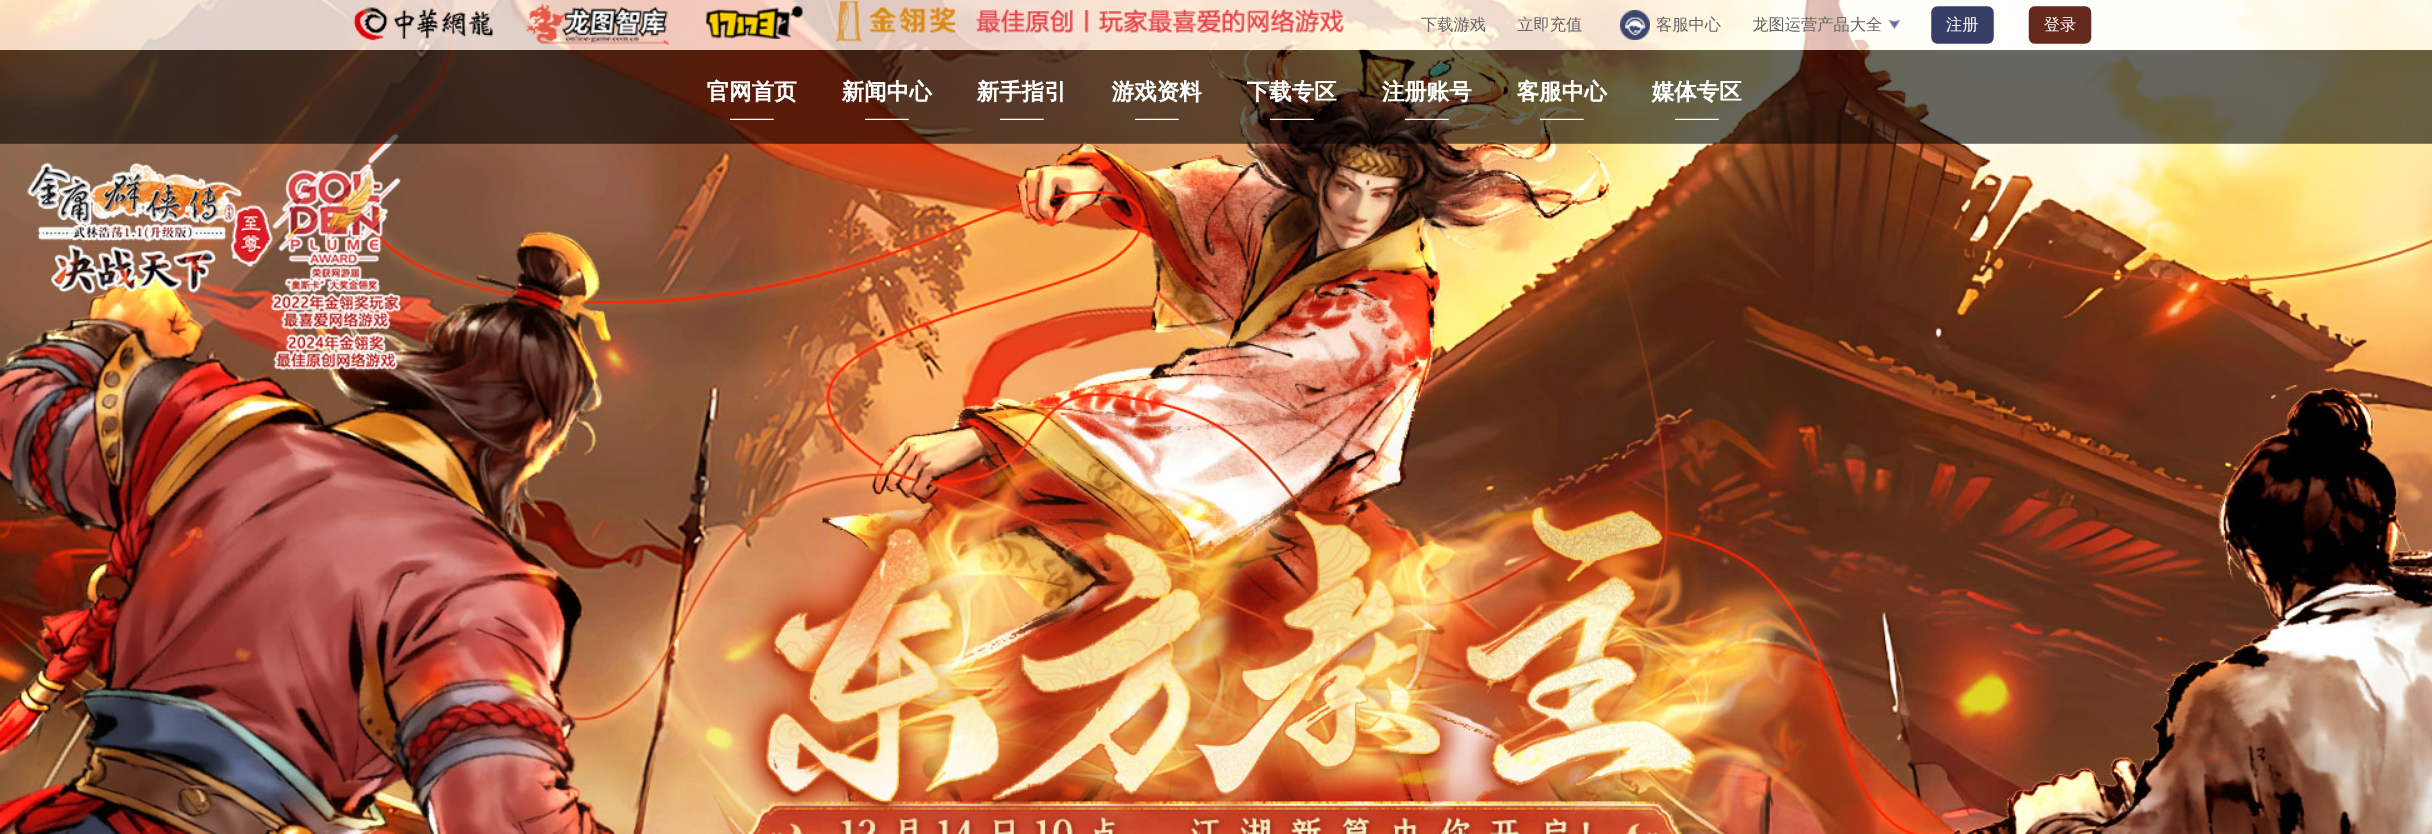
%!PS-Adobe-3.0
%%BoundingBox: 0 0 2432 834
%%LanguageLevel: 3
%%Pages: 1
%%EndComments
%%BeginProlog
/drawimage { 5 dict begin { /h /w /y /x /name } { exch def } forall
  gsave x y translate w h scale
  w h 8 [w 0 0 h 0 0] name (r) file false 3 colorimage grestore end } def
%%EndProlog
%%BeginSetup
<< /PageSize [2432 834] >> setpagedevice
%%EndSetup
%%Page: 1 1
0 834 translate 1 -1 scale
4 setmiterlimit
1 setgray
0 0 2432 834 rectfill
(images/1.raw) 0 0 2432 834 drawimage
(images/2.raw) 0 0 2432 144 drawimage
showpage
%%EOF
